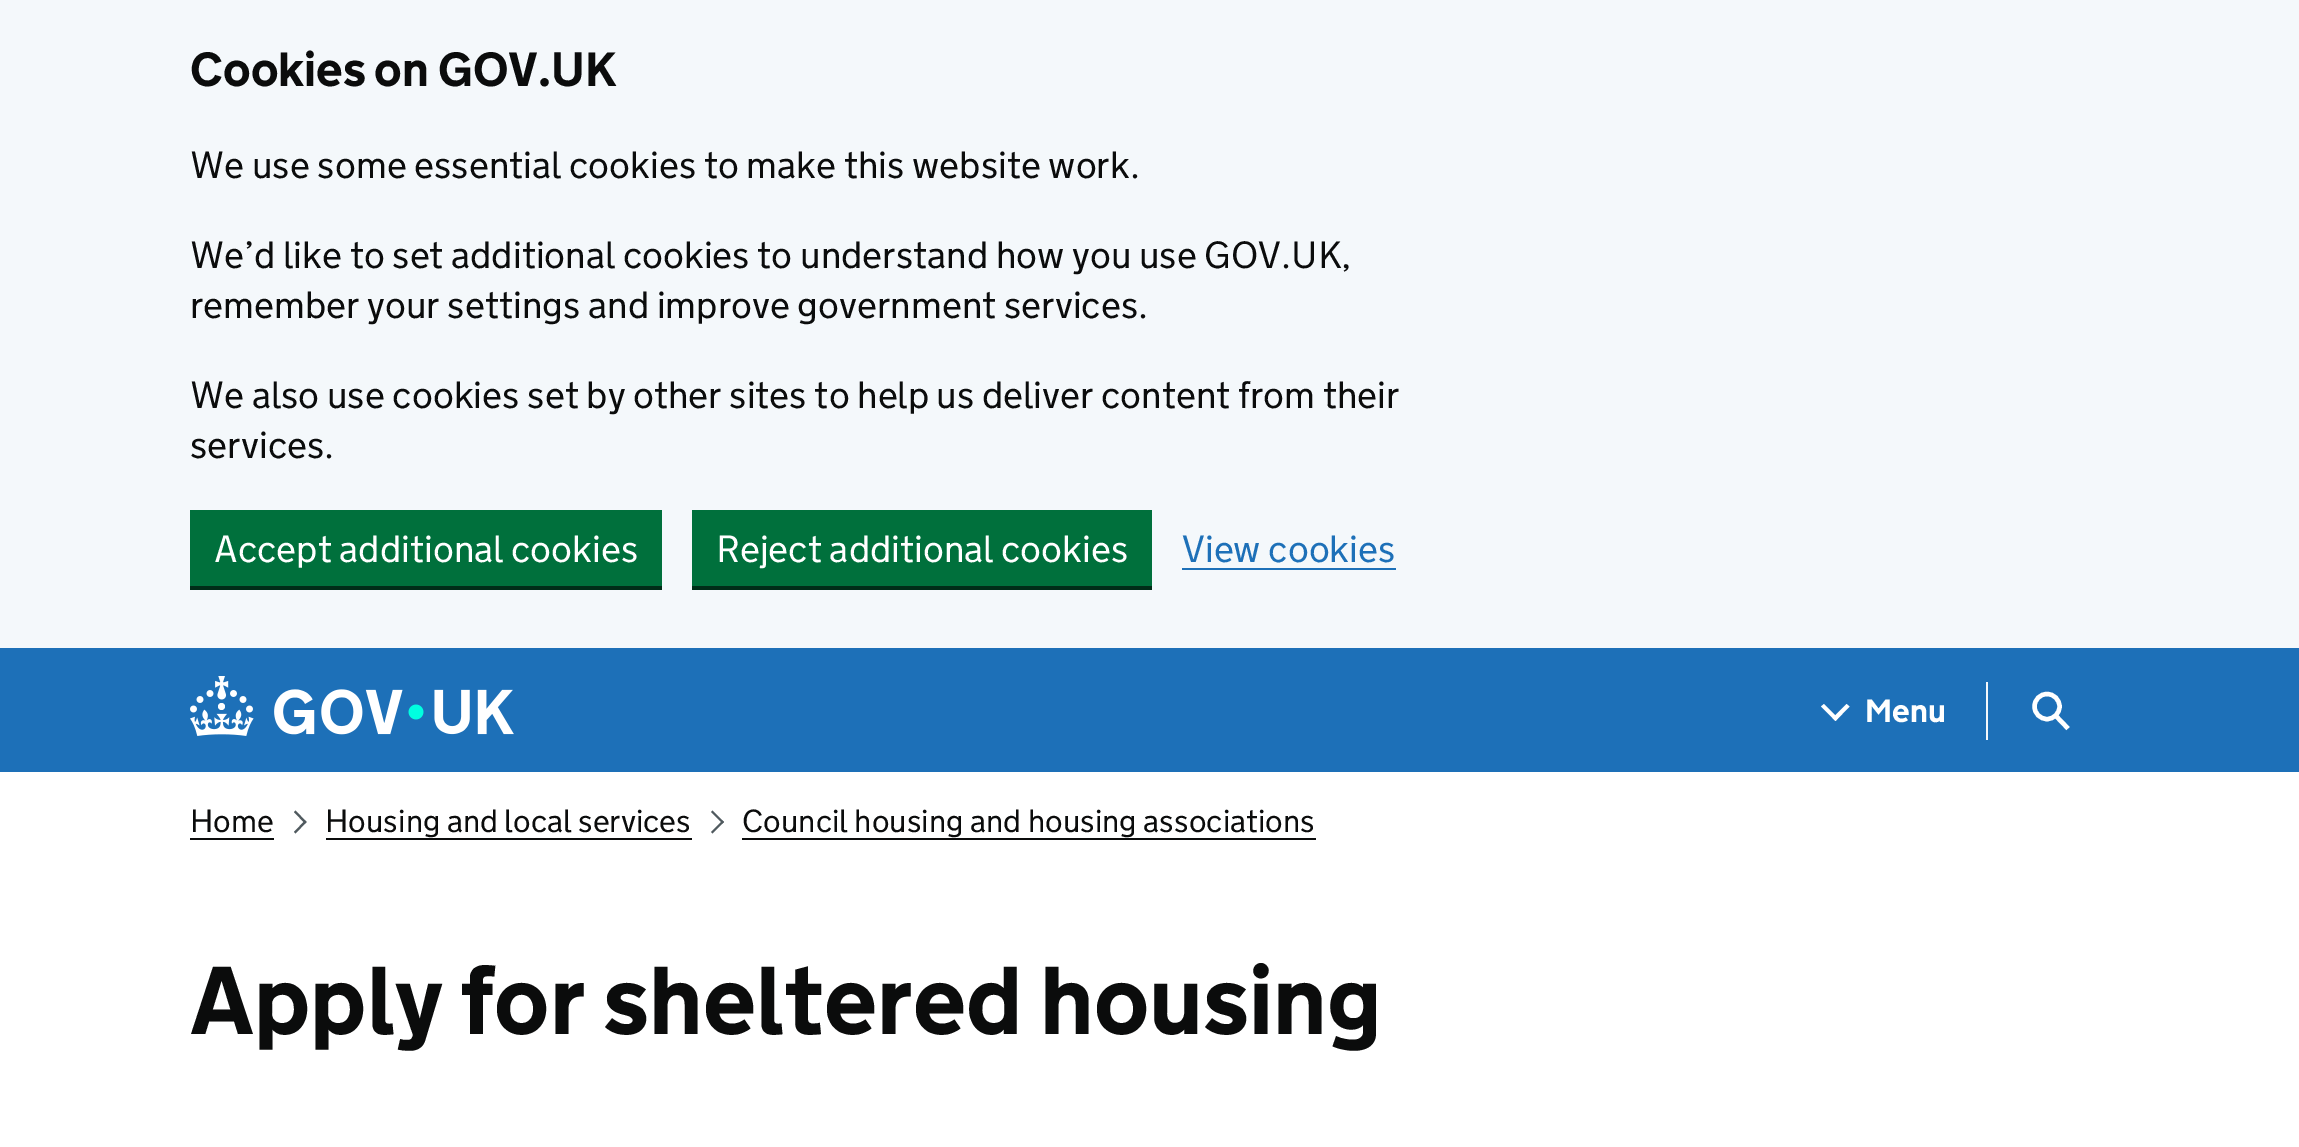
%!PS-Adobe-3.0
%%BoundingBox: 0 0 2299 1147
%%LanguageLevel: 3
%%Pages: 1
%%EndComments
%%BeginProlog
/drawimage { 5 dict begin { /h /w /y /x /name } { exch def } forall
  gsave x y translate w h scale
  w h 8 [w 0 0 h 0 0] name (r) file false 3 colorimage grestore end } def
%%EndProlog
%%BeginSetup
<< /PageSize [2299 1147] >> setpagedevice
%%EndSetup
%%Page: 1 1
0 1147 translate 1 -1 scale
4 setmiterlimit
1 setgray
0 0 2299 1147 rectfill
0.957 0.973 0.984 setrgbcolor
0 0 2299 648 rectfill
0 0.176 0.094 setrgbcolor
190 586 472 4 rectfill
0 0.439 0.235 setrgbcolor
190 510 472 76 rectfill
0 0.176 0.094 setrgbcolor
692 586 460 4 rectfill
0 0.439 0.235 setrgbcolor
692 510 460 76 rectfill
0.114 0.439 0.722 setrgbcolor
1182 568 214 2 rectfill
0 648 2299 124 rectfill
(images/1.raw) 190 676 324 60 drawimage
0.957 0.973 0.984 setrgbcolor
1986 682 2 58 rectfill
1 setgray
newpath 1846.5 704 moveto 1849.5 706.5 lineto 1835.5 721 lineto 1832.5 718 lineto closepath fill
newpath 1824 704 moveto 1838 718 lineto 1835.5 721 lineto 1821 706.5 lineto closepath fill
4.4 setlinewidth
newpath 2047 706.5 12.5 0 360 arc closepath stroke
newpath 2055.5 715.5 moveto 2068 728.5 lineto stroke
0.043 0.047 0.047 setrgbcolor
190 838 84 2 rectfill
0.314 0.353 0.373 setrgbcolor
newpath 295.5 810.5 moveto 306.5 822 lineto 305 823.5 lineto 294 812 lineto closepath fill
newpath 305 820.5 moveto 306.5 822 lineto 295.5 833.5 lineto 294 832 lineto closepath fill
0.043 0.047 0.047 setrgbcolor
326 838 366 2 rectfill
0.314 0.353 0.373 setrgbcolor
newpath 712.5 810.5 moveto 724 822 lineto 722.5 823.5 lineto 711 812 lineto closepath fill
newpath 722.5 820.5 moveto 724 822 lineto 712.5 833.5 lineto 711 832 lineto closepath fill
0.043 0.047 0.047 setrgbcolor
742 838 574 2 rectfill
/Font-Bold [48 0 0 -48 0 0] selectfont
190 86 moveto (Cookies on GOV.UK) show
/Font-Light [38 0 0 -38 0 0] selectfont
190 178 moveto (We use some essential cookies to make this website work.) show
190 268 moveto (We’d like to set additional cookies to understand how you use GOV.UK,) show
190 318 moveto (remember your settings and improve government services.) show
190 408 moveto (We also use cookies set by other sites to help us deliver content from their) show
190 458 moveto (services.) show
1 setgray
214 562 moveto (Accept additional cookies) show
716 562 moveto (Reject additional cookies) show
0.114 0.439 0.722 setrgbcolor
1182 562 moveto (View cookies) show
/Font-Bold [32 0 0 -32 0 0] selectfont
1 setgray
1865 722 moveto (Menu) show
/Font-Light [32 0 0 -32 0 0] selectfont
0.043 0.047 0.047 setrgbcolor
190 832 moveto (Home) show
325 832 moveto (Housing and local services) show
742 832 moveto (Council housing and housing associations) show
/Font-Bold [96 0 0 -96 0 0] selectfont
190 1034 moveto (Apply for sheltered housing) show
showpage
%%EOF
